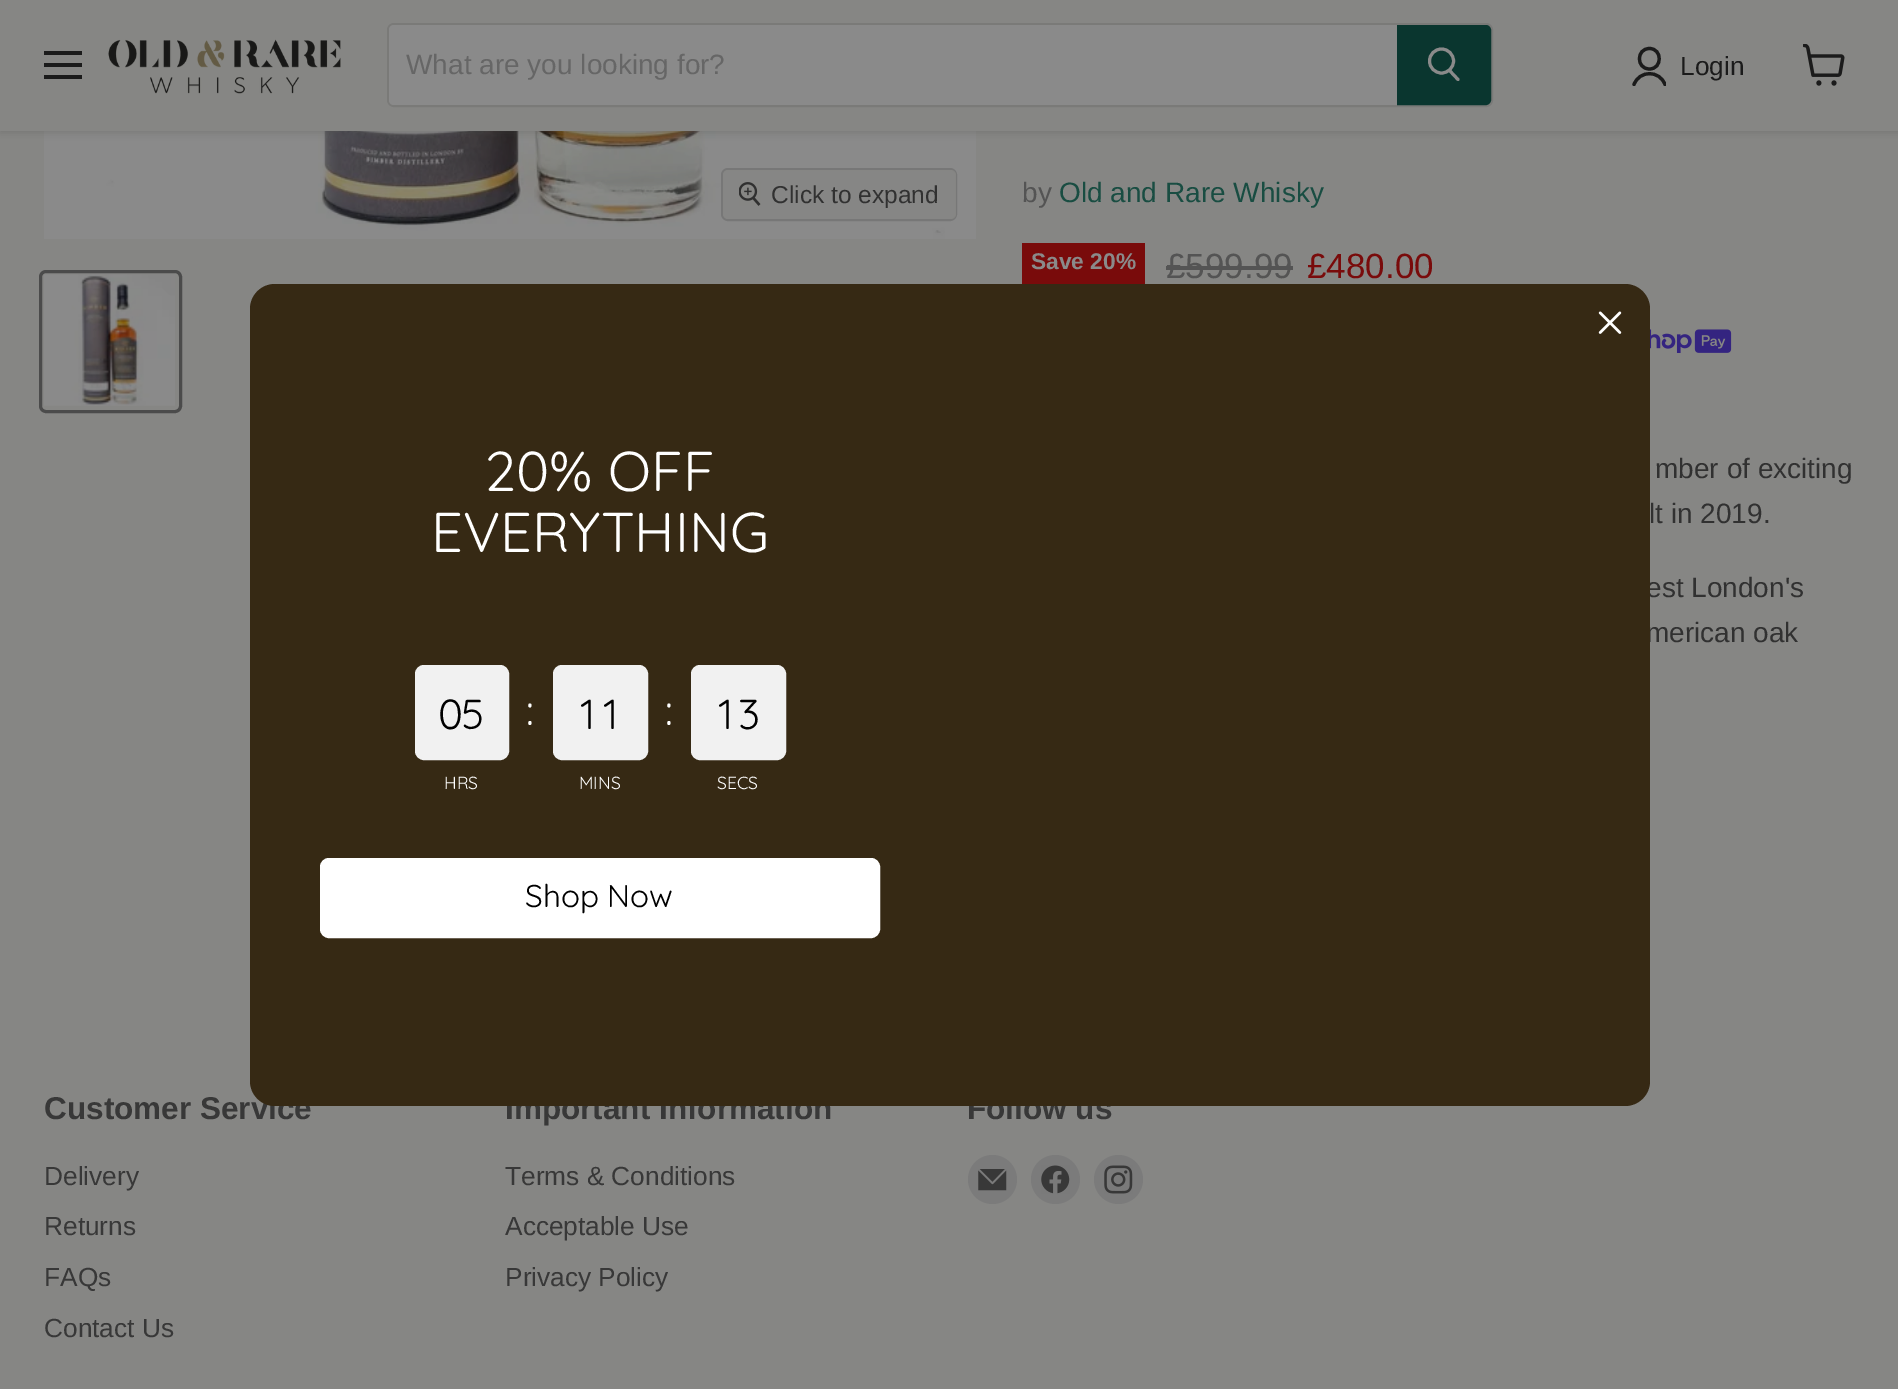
%!PS-Adobe-3.0
%%BoundingBox: 0 0 1898 1389
%%LanguageLevel: 3
%%Pages: 1
%%EndComments
%%BeginProlog
/setalpha { dup .setfillconstantalpha .setstrokeconstantalpha } def
/rrect { 5 dict begin { /r /h /w /y /x } { exch def } forall
  x r add y moveto x w add y 2 copy h add r arct x w add y h add x 1 index r arct
  x y h add x y r arct x y 2 copy exch w add exch r arct closepath end } def
/softshadow { 12 dict begin { /a /b /q /h /w /y /x } { exch def } forall gsave /was 0 def
  9 -2 -9 { dup b mul 4 div /e exch def 1 sub .425 mul 2.718 exch exp 1 add a .99 .min exch div /now exch def
    1 1 now sub 1 was sub div sub setalpha /was now def
    w h .min e 2 mul add 0 gt { x e sub y e sub w e 2 mul add h e 2 mul add
      q e add b .6 mul add w h .min 2 div e add .min 0 .max rrect fill } if } for grestore end } def
/drawimage { 5 dict begin { /h /w /y /x /name } { exch def } forall
  gsave x y translate w h scale
  w h 8 [w 0 0 h 0 0] name (r) file false 3 colorimage grestore end } def
%%EndProlog
%%BeginSetup
<< /PageSize [1898 1389] /PageUsesTransparency true >> setpagedevice
%%EndSetup
%%Page: 1 1
0 .pushpdf14devicefilter
0 1389 translate 1 -1 scale
4 setmiterlimit
0.525 0.525 0.518 setrgbcolor
0 0 1898 1389 rectfill
(images/4.raw) 44 131 932 108 drawimage
0.282 0.282 0.278 setrgbcolor
0 2 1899 131 0 3.5 0.25 softshadow
0.525 0.525 0.518 setrgbcolor
0 0 1898 131 rectfill
0.106 setgray
44 51 38 4 rectfill
44 63 38 4 rectfill
44 75 38 4 rectfill
(images/1.raw) 108 39 233 55 drawimage
0.2 setalpha
0.282 0.282 0.278 setrgbcolor
2 setlinewidth
388 24 1104 82 6 rrect stroke
1 setalpha
0.541 setgray
newpath 394 25 moveto 1397 25 lineto 1397 105 lineto 394 105 lineto 391 105 389 103 389 100 curveto 389 30 lineto 389 27 391 25 394 25 curveto closepath fill
0.039 0.212 0.184 setrgbcolor
newpath 1398 26 moveto 1486 26 lineto 1488 26 1490 28 1490 30 curveto 1490 100 lineto 1490 102 1488 104 1486 104 curveto 1398 104 lineto closepath gsave fill grestore
stroke
0.541 setgray
3 setlinewidth
1 setlinecap
newpath 1458 79.5 moveto 1450 71 lineto stroke
0 setlinecap
newpath 1441.5 61 12 0 360 arc closepath stroke
0.106 setgray
3.2 setlinewidth
1 setlinecap
1 setlinejoin
newpath 1649.5 69 moveto 1662.5 69 1662.5 48.5 1649.5 48.5 curveto 1636 48.5 1636 69 1649.5 69 curveto closepath stroke
gsave
1631 46 35 40 rectclip
newpath 1665 84.5 moveto 1659.5 70 1639.5 70 1634 84.5 curveto stroke
grestore
(images/2.raw) 1803 44 42 42 drawimage
0.467 setgray
2 setlinewidth
0 setlinecap
0 setlinejoin
722 169 234 51 6 rrect stroke
0.9 setalpha
0.525 0.525 0.518 setrgbcolor
723 170 233 49 5 rrect fill
1 setalpha
(images/5.raw) 739 182 22 24 drawimage
0.294 setgray
3 setlinewidth
40.5 271.5 140 140 5.5 rrect stroke
(images/6.raw) 44 274 131 132 drawimage
0.475 0.043 0.043 setrgbcolor
1022 243 123 41 rectfill
0.329 setgray
1166 266 127 4 rectfill
(images/7.raw) 1650 329 82 24 drawimage
0.482 setgray
newpath 992.5 1179.5 24.5 0 360 arc closepath fill
(images/8.raw) 978 1169 29 22 drawimage
newpath 1055.5 1179.5 24.5 0 360 arc closepath fill
(images/9.raw) 1041 1165 29 29 drawimage
newpath 1118.5 1179.5 24.5 0 360 arc closepath fill
(images/10.raw) 1104 1165 29 29 drawimage
/LiberationSans-Regular [28 0 0 -28 0 0] selectfont
0.4 setgray
406 74 moveto (What are you looking for?) show
/LiberationSans-Regular [26.25 0 0 -26.25 0 0] selectfont
0.106 setgray
1680 75 moveto (Login) show
/LiberationSans-Regular [24.5 0 0 -24.5 0 0] selectfont
0.192 setgray
771 203 moveto (Click to expand) show
/LiberationSans-Regular [28 0 0 -28 0 0] selectfont
0.329 setgray
1022 202 moveto (by) show
0.098 0.302 0.259 setrgbcolor
1059 202 moveto (Old and Rare Whisky) show
/LiberationSans-Bold [22.75 0 0 -22.75 0 0] selectfont
0.541 setgray
1031 269 moveto (Save 20%) show
/LiberationSans-Regular [35 0 0 -35 0 0] selectfont
0.329 setgray
1166 278 moveto (£599.99) show
0.475 0.043 0.043 setrgbcolor
1307 278 moveto (£480.00) show
/LiberationSans-Regular [28 0 0 -28 0 0] selectfont
0.192 setgray
1655 478 moveto (mber of exciting) show
1649 523 moveto (lt in 2019.) show
1646 597 moveto (est London's) show
1646 642 moveto (merican oak) show
/LiberationSans-Bold [31.5 0 0 -31.5 0 0] selectfont
0.22 setgray
44 1119 moveto (Customer Service) show
/LiberationSans-Regular [26.25 0 0 -26.25 0 0] selectfont
44 1185 moveto (Delivery) show
44 1235 moveto (Returns) show
44 1286 moveto (FAQs) show
44 1337 moveto (Contact Us) show
/LiberationSans-Bold [31.5 0 0 -31.5 0 0] selectfont
505 1119 moveto (Important Information) show
/LiberationSans-Regular [26.25 0 0 -26.25 0 0] selectfont
505 1185 moveto (Terms & Conditions) show
505 1235 moveto (Acceptable Use) show
505 1286 moveto (Privacy Policy) show
/LiberationSans-Bold [31.5 0 0 -31.5 0 0] selectfont
967 1119 moveto (Follow us) show
0.212 0.161 0.078 setrgbcolor
250 284 1400 822 25 rrect fill
(images/3.raw) 1598 311 24 23 drawimage
0.945 setgray
693 667 91 91 7 rrect gsave fill grestore
4 setlinewidth
stroke
/Quicksand-Light [42 0 0 -42 0 0] selectfont
0 setgray
738 729 moveto 5 0 (3) ashow
718 729 moveto 5 0 (1) ashow
0.945 setgray
555 667 91 91 7 rrect gsave fill grestore
stroke
0 setgray
603 729 moveto 5 0 (1) ashow
580 729 moveto 5 0 (1) ashow
0.945 setgray
417 667 90 91 7 rrect gsave fill grestore
stroke
0 setgray
461 729 moveto 5 0 (5) ashow
438 729 moveto 5 0 (0) ashow
/Quicksand-Light [17.5 0 0 -17.5 0 0] selectfont
1 setgray
717 789 moveto (SECS) show
/Quicksand-Light [42 0 0 -42 0 0] selectfont
665 725 moveto (:) show
/Quicksand-Light [17.5 0 0 -17.5 0 0] selectfont
579 789 moveto (MINS) show
/Quicksand-Light [42 0 0 -42 0 0] selectfont
526 725 moveto (:) show
/Quicksand-Light [17.5 0 0 -17.5 0 0] selectfont
444 789 moveto (HRS) show
322 860 556 76 7 rrect gsave fill grestore
stroke
/Quicksand-Light [31.5 0 0 -31.5 0 0] selectfont
0 setgray
525 907 moveto (Shop Now) show
/Quicksand-Light [56 0 0 -56 0 0] selectfont
1 setgray
431 552 moveto (EVERYTHING) show
485 491 moveto (20% OFF) show
.poppdf14devicefilter showpage
%%EOF
